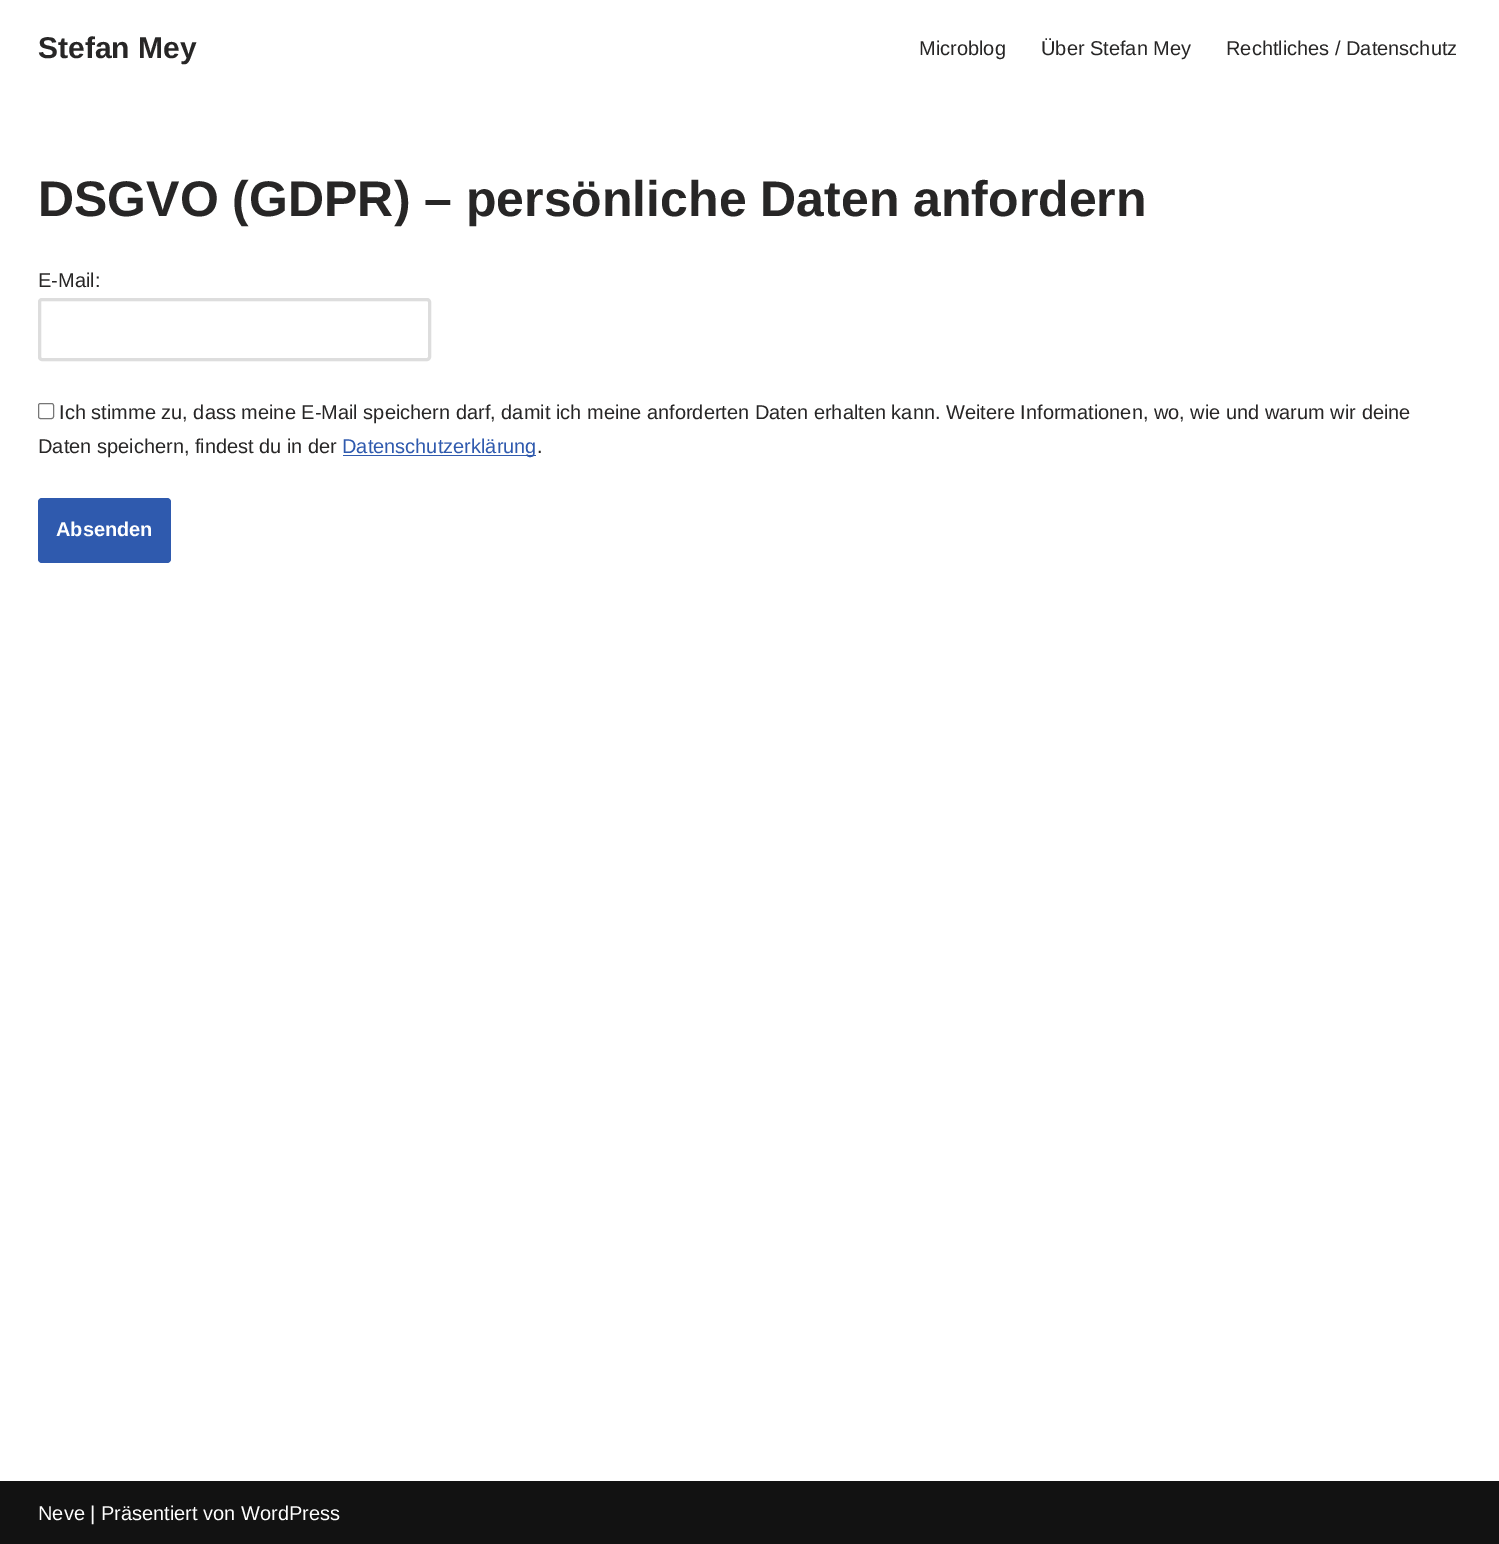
%!PS-Adobe-3.0
%%BoundingBox: 0 0 1499 1544
%%LanguageLevel: 3
%%Pages: 1
%%EndComments
%%BeginProlog
/rrect { 5 dict begin { /r /h /w /y /x } { exch def } forall
  x r add y moveto x w add y 2 copy h add r arct x w add y h add x 1 index r arct
  x y h add x y r arct x y 2 copy exch w add exch r arct closepath end } def
%%EndProlog
%%BeginSetup
<< /PageSize [1499 1544] >> setpagedevice
%%EndSetup
%%Page: 1 1
0 1544 translate 1 -1 scale
4 setmiterlimit
1 setgray
0 0 1499 1544 rectfill
0.867 setgray
3 setlinewidth
39.5 299.5 390 60 2.5 rrect stroke
0.463 setgray
1 setlinewidth
38.5 403.5 15 15 2 rrect stroke
0.184 0.353 0.682 setrgbcolor
343 455 193 1 rectfill
38 498 133 65 4 rrect fill
0.071 setgray
0 1481 1499 63 rectfill
/LiberationSans-Bold [30 0 0 -30 0 0] selectfont
0.153 0.149 0.149 setrgbcolor
38 58 moveto (Stefan Mey) show
/LiberationSans-Regular [20 0 0 -20 0 0] selectfont
919 55 moveto (Microblog) show
1041 55 moveto (Über Stefan Mey) show
1226 55 moveto (Rechtliches / Datenschutz) show
/LiberationSans-Bold [50 0 0 -50 0 0] selectfont
38 216 moveto (DSGVO \(GDPR\) – persönliche Daten anfordern) show
/LiberationSans-Regular [20 0 0 -20 0 0] selectfont
38 287 moveto (E-Mail:) show
59 419 moveto (Ich stimme zu, dass meine E-Mail speichern darf, damit ich meine anforderten Daten erhalten kann. Weitere Informationen, wo, wie und warum wir deine) show
38 453 moveto (Daten speichern, findest du in der) show
0.184 0.353 0.682 setrgbcolor
342 453 moveto (Datenschutzerklärung) show
0.153 0.149 0.149 setrgbcolor
537 453 moveto (.) show
/LiberationSans-Bold [20 0 0 -20 0 0] selectfont
1 setgray
56 536 moveto (Absenden) show
/LiberationSans-Regular [20 0 0 -20 0 0] selectfont
38 1520 moveto (Neve | Präsentiert von WordPress) show
showpage
%%EOF
